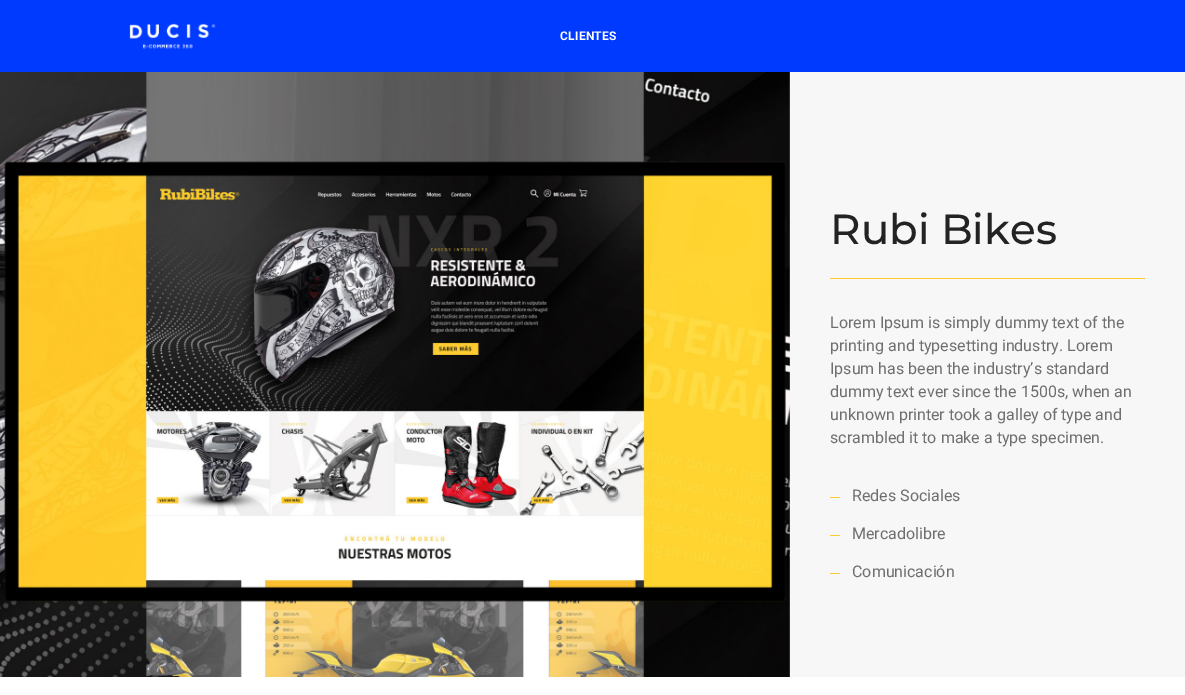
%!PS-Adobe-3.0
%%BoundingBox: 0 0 1185 695
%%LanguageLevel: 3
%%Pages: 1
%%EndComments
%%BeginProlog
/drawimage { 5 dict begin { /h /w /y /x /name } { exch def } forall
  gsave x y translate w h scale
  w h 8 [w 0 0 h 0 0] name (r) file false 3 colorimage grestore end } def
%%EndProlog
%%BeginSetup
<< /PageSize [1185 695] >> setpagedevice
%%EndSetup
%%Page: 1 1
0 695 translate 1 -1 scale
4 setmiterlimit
1 setgray
0 0 1185 695 rectfill
0 0.227 1 setrgbcolor
0 0 1185 72 rectfill
(images/1.raw) 129 23 87 26 drawimage
0.969 setgray
789 72 396 605 rectfill
(images/2.raw) 0 72 790 605 drawimage
0.996 0.796 0.184 setrgbcolor
830 278 315 1 rectfill
830 497 10 1 rectfill
830 535 10 1 rectfill
830 573 10 1 rectfill
/Roboto-Bold [12 0 0 -12 0 0] selectfont
1 setgray
560 40 moveto 0.25 0 (CLIENTES) ashow
/Montserrat-Medium [42 0 0 -42 0 0] selectfont
0.137 setgray
830 244 moveto (Rubi Bikes) show
/Roboto-Regular [16 0 0 -16 0 0] selectfont
0.435 setgray
830 328 moveto (Lorem Ipsum is simply dummy text of the) show
830 351 moveto (printing and typesetting industry. Lorem) show
830 374 moveto (Ipsum has been the industry’s standard) show
830 397 moveto (dummy text ever since the 1500s, when an) show
830 420 moveto (unknown printer took a galley of type and) show
830 443 moveto (scrambled it to make a type specimen.) show
852 501 moveto (Redes Sociales) show
852 539 moveto (Mercadolibre) show
852 577 moveto (Comunicación) show
showpage
%%EOF
